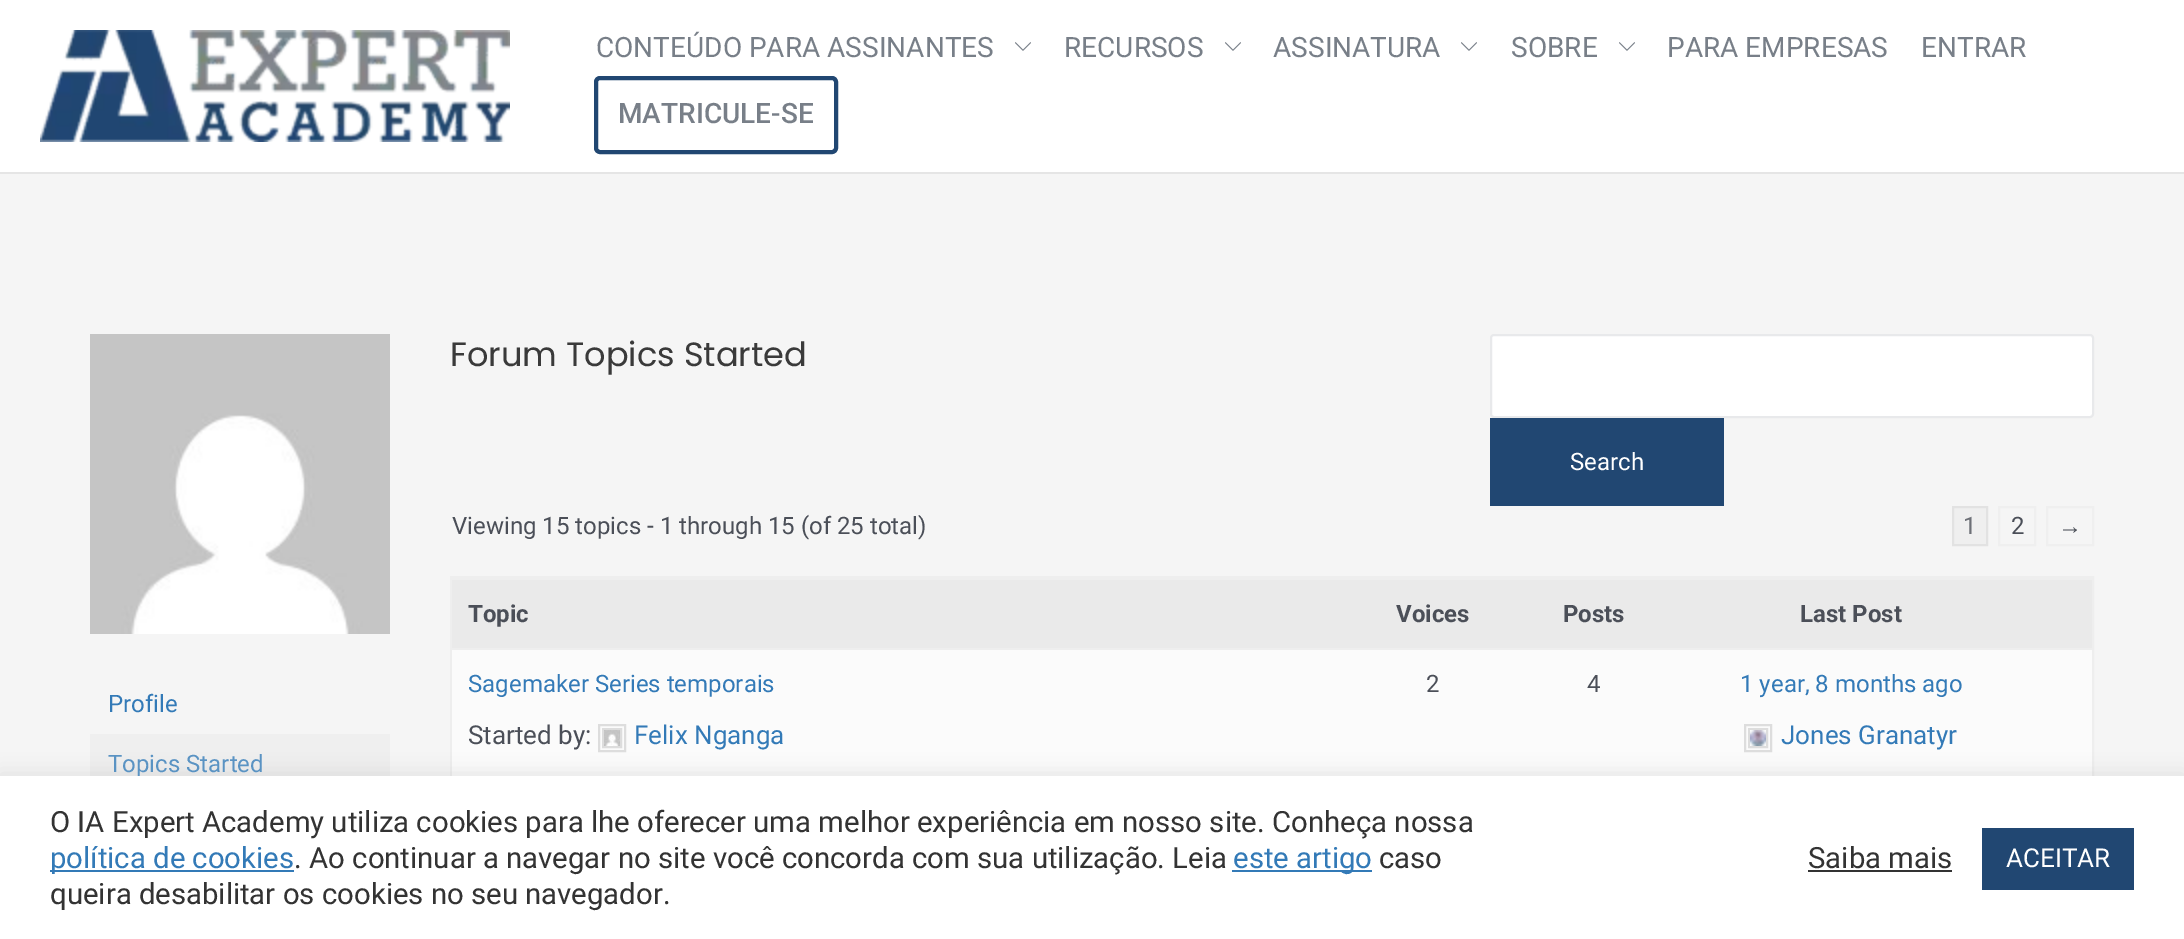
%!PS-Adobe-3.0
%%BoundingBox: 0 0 2184 939
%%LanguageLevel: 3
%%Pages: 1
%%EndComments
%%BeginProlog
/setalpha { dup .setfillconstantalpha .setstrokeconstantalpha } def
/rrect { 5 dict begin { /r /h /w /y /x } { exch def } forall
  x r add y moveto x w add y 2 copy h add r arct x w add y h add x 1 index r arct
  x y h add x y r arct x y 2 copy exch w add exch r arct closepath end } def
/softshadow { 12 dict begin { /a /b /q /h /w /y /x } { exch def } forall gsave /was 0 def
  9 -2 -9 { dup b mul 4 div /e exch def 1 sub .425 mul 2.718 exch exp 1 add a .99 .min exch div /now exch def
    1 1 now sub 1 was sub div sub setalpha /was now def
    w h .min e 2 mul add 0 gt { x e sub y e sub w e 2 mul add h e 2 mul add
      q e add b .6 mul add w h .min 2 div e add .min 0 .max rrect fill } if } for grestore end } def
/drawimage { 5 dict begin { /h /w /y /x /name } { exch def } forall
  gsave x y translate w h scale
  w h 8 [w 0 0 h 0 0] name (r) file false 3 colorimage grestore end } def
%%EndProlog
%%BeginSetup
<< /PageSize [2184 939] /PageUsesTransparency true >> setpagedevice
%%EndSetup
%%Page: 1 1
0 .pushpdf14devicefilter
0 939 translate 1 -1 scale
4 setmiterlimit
0.961 setgray
0 0 2184 939 rectfill
1 setgray
0 0 2184 172 rectfill
0.898 setgray
0 172 2184 2 rectfill
(images/1.raw) 40 30 470 112 drawimage
(images/2.raw) 1015 42 16 9 drawimage
(images/2.raw) 1225 42 16 9 drawimage
(images/2.raw) 1461 42 16 9 drawimage
(images/2.raw) 1619 42 16 9 drawimage
0.129 0.278 0.447 setrgbcolor
4 setlinewidth
596 78 240 74 4 rrect stroke
(images/3.raw) 90 334 300 300 drawimage
0.937 setgray
90 734 300 42 rectfill
1 setgray
1491 335 602 82 3 rrect gsave fill grestore
0.91 0.914 0.922 setrgbcolor
2 setlinewidth
stroke
0.129 0.278 0.447 setrgbcolor
1490 418 234 88 rectfill
0.937 setgray
newpath 1953 507 moveto 1987 507 lineto 1987 545 lineto 1953 545 lineto closepath gsave fill grestore
0.886 setgray
stroke
0.937 setgray
1999 507 36 38 rectstroke
2047 507 46 38 rectstroke
0.933 setgray
451 577 1642 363 rectstroke
0.918 setgray
452 580 1640 68 rectfill
0.933 setgray
452 578 1640 2 rectfill
0.984 setgray
452 650 1640 126 rectfill
0.933 setgray
452 648 1640 2 rectfill
0.867 setgray
599 725 26 26 rectstroke
603 729 18 18 rectstroke
(images/4.raw) 604 730 16 16 drawimage
1745 725 26 26 rectstroke
1749 729 18 18 rectstroke
(images/5.raw) 1750 730 16 16 drawimage
0.675 0.671 0.671 setrgbcolor
0 774 2184 164 0 10 0.3 softshadow
/Roboto-Regular [28 0 0 -28 0 0] selectfont
0.471 0.498 0.533 setrgbcolor
596 57 moveto (CONTEÚDO PARA ASSINANTES) show
1064 57 moveto (RECURSOS) show
1273 57 moveto (ASSINATURA) show
1511 57 moveto (SOBRE) show
1667 57 moveto (PARA EMPRESAS) show
1921 57 moveto (ENTRAR) show
/Roboto-Medium [28 0 0 -28 0 0] selectfont
618 123 moveto (MATRICULE-SE) show
/Roboto-Regular [24 0 0 -24 0 0] selectfont
0.2 0.478 0.718 setrgbcolor
108 712 moveto (Profile) show
0.353 0.576 0.765 setrgbcolor
108 772 moveto (Topics Started) show
/Poppins-Regular [33.6 0 0 -33.6 0 0] selectfont
0.227 setgray
450 366 moveto (Forum Topics Started) show
/Roboto-Regular [24 0 0 -24 0 0] selectfont
1 setgray
1570 470 moveto (Search) show
0.294 0.31 0.345 setrgbcolor
452 534 moveto (Viewing 15 topics - 1 through 15 \(of 25 total\)) show
0.427 0.439 0.467 setrgbcolor
1963 534 moveto (1) show
0.294 0.31 0.345 setrgbcolor
2011 534 moveto (2) show
/LiberationSans-Regular [24 0 0 -24 0 0] selectfont
2058 534 moveto (→) show
/Roboto-Bold [24 0 0 -24 0 0] selectfont
468 622 moveto (Topic) show
1396 622 moveto (Voices) show
1563 622 moveto (Posts) show
1800 622 moveto (Last Post) show
/Roboto-Regular [24 0 0 -24 0 0] selectfont
0.2 0.478 0.718 setrgbcolor
468 692 moveto (Sagemaker Series temporais) show
/Roboto-Regular [26 0 0 -26 0 0] selectfont
0.294 0.31 0.345 setrgbcolor
468 744 moveto (Started by:) show
0.2 0.478 0.718 setrgbcolor
634 744 moveto (Felix Nganga) show
/Roboto-Regular [24 0 0 -24 0 0] selectfont
0.294 0.31 0.345 setrgbcolor
1426 692 moveto (2) show
1587 692 moveto (4) show
0.2 0.478 0.718 setrgbcolor
1740 692 moveto (1 year, 8 months ago) show
/Roboto-Regular [26 0 0 -26 0 0] selectfont
1781 744 moveto (Jones Granatyr) show
1 setgray
0 776 2184 163 rectfill
/Roboto-Regular [29.35 0 0 -29.35 0 0] selectfont
0.2 setgray
50 832 moveto (O IA Expert Academy utiliza cookies para lhe oferecer uma melhor experiência em nosso site. Conheça nossa) show
0.2 0.478 0.718 setrgbcolor
50 870 244 2 rectfill
50 868 moveto (política de cookies) show
0.2 setgray
294 868 moveto (. Ao continuar a navegar no site você concorda com sua utilização. Leia) show
0.2 0.478 0.718 setrgbcolor
1232 870 140 2 rectfill
1233 868 moveto (este artigo) show
0.2 setgray
1379 868 moveto (caso) show
50 904 moveto (queira desabilitar os cookies no seu navegador.) show
1808 868 moveto (Saiba mais) show
1808 870 144 2 rectfill
0.129 0.278 0.447 setrgbcolor
1982 828 152 62 rectfill
/Roboto-Regular [26 0 0 -26 0 0] selectfont
1 setgray
2006 867 moveto (ACEITAR) show
.poppdf14devicefilter showpage
%%EOF
